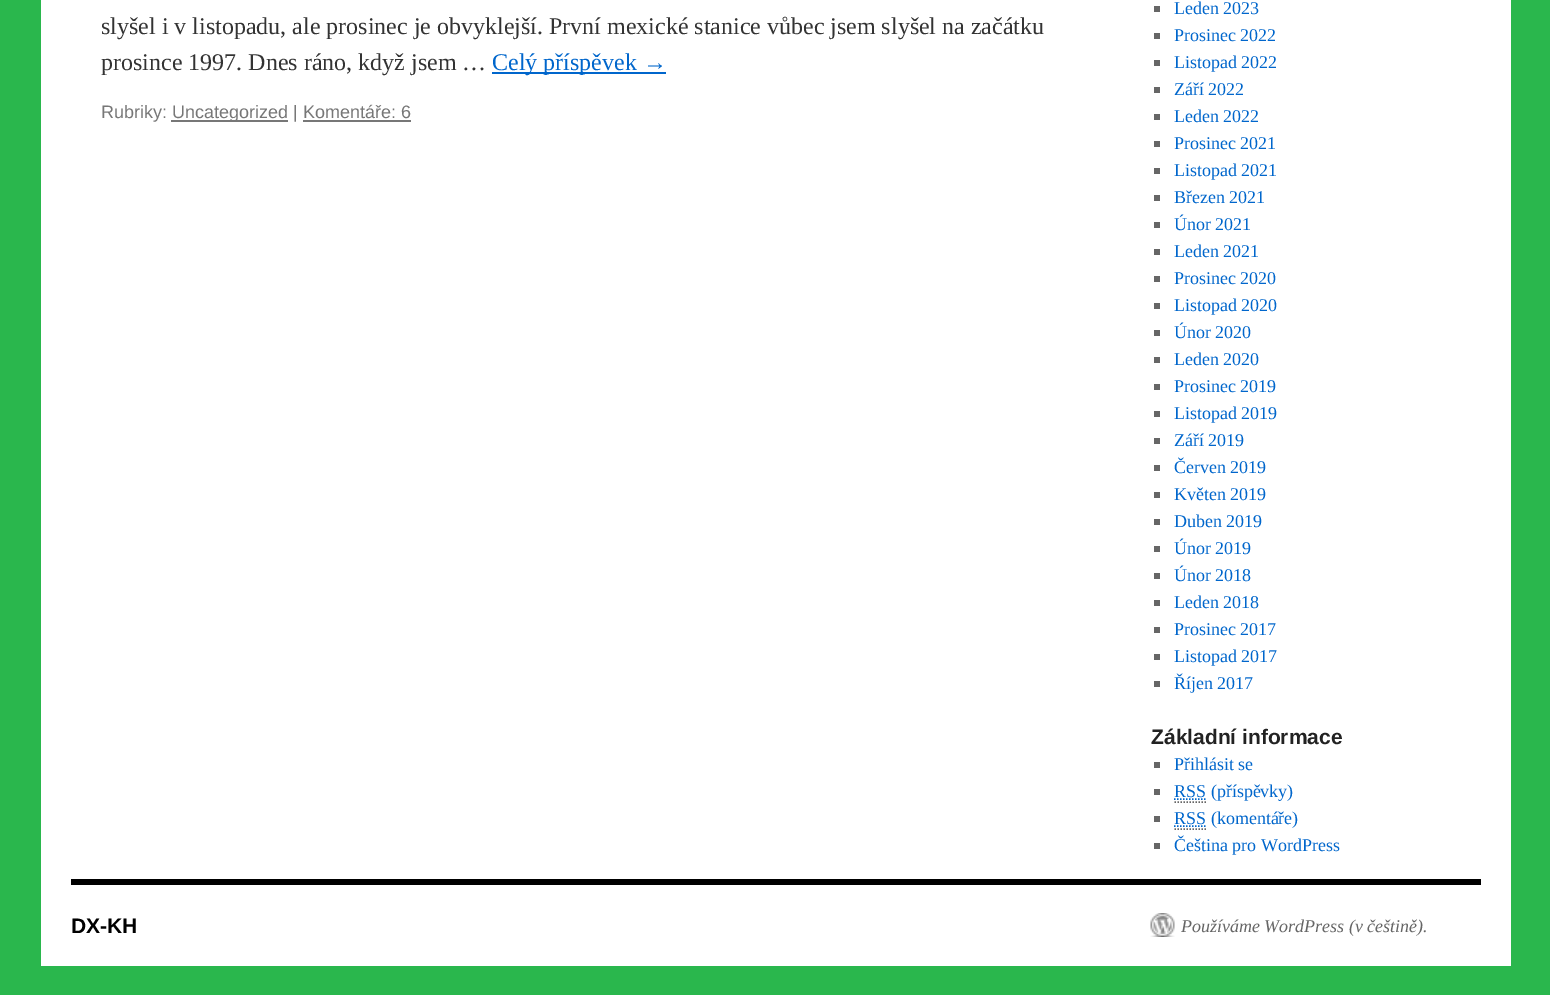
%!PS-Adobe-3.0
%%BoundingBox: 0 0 1550 995
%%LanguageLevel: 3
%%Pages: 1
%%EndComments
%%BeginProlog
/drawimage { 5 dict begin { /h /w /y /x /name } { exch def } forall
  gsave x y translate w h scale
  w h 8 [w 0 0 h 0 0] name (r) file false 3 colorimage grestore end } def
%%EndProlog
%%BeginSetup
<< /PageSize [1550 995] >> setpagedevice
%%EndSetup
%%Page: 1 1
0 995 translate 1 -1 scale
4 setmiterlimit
0.165 0.718 0.302 setrgbcolor
0 0 1550 995 rectfill
1 setgray
41 0 1470 966 rectfill
0 0.4 0.8 setrgbcolor
492 72 174 2 rectfill
0.467 setgray
171 120 117 2 rectfill
303 120 108 2 rectfill
0.4 setgray
1154 6 6 6 rectfill
1154 33 6 6 rectfill
1154 60 6 6 rectfill
1154 87 6 6 rectfill
1154 114 6 6 rectfill
1154 141 6 6 rectfill
1154 168 6 6 rectfill
1154 195 6 6 rectfill
1154 222 6 6 rectfill
1154 249 6 6 rectfill
1154 276 6 6 rectfill
1154 303 6 6 rectfill
1154 330 6 6 rectfill
1154 357 6 6 rectfill
1154 384 6 6 rectfill
1154 411 6 6 rectfill
1154 438 6 6 rectfill
1154 465 6 6 rectfill
1154 492 6 6 rectfill
1154 519 6 6 rectfill
1154 546 6 6 rectfill
1154 573 6 6 rectfill
1154 600 6 6 rectfill
1154 627 6 6 rectfill
1154 654 6 6 rectfill
1154 681 6 6 rectfill
1154 762 6 6 rectfill
1154 789 6 6 rectfill
1.5 setlinewidth
[1.5 1.5] 0 setdash
newpath 1174.5 802 moveto 1206 802 lineto stroke
0 0.4 0.8 setrgbcolor
newpath 1174 799 moveto 1206 799 lineto stroke
0.4 setgray
1154 816 6 6 rectfill
newpath 1174.5 829 moveto 1206 829 lineto stroke
0 0.4 0.8 setrgbcolor
newpath 1174 826 moveto 1206 826 lineto stroke
0.4 setgray
1154 843 6 6 rectfill
0 setgray
71 879 1410 6 rectfill
(images/1.raw) 1150 913 25 24 drawimage
/LiberationSerif-Regular [24 0 0 -24 0 0] selectfont
0.2 setgray
101 34 moveto (slyšel i v listopadu, ale prosinec je obvyklejší. První mexické stanice vůbec jsem slyšel na začátku) show
101 70 moveto (prosince 1997. Dnes ráno, když jsem …) show
0 0.4 0.8 setrgbcolor
492 70 moveto (Celý příspěvek →) show
/LiberationSans-Regular [18 0 0 -18 0 0] selectfont
0.467 setgray
101 118 moveto (Rubriky:) show
172 118 moveto (Uncategorized | Komentáře: 6) show
/LiberationSerif-Regular [18 0 0 -18 0 0] selectfont
0 0.4 0.8 setrgbcolor
1174 14 moveto (Leden 2023) show
1174 41 moveto (Prosinec 2022) show
1174 68 moveto (Listopad 2022) show
1174 95 moveto (Září 2022) show
1174 122 moveto (Leden 2022) show
1174 149 moveto (Prosinec 2021) show
1174 176 moveto (Listopad 2021) show
1174 203 moveto (Březen 2021) show
1174 230 moveto (Únor 2021) show
1174 257 moveto (Leden 2021) show
1174 284 moveto (Prosinec 2020) show
1174 311 moveto (Listopad 2020) show
1174 338 moveto (Únor 2020) show
1174 365 moveto (Leden 2020) show
1174 392 moveto (Prosinec 2019) show
1174 419 moveto (Listopad 2019) show
1174 446 moveto (Září 2019) show
1174 473 moveto (Červen 2019) show
1174 500 moveto (Květen 2019) show
1174 527 moveto (Duben 2019) show
1174 554 moveto (Únor 2019) show
1174 581 moveto (Únor 2018) show
1174 608 moveto (Leden 2018) show
1174 635 moveto (Prosinec 2017) show
1174 662 moveto (Listopad 2017) show
1174 689 moveto (Říjen 2017) show
/LiberationSans-Bold [21 0 0 -21 0 0] selectfont
0.133 setgray
1151 744 moveto (Základní informace) show
/LiberationSerif-Regular [18 0 0 -18 0 0] selectfont
0 0.4 0.8 setrgbcolor
1174 770 moveto (Přihlásit se) show
1174 797 moveto (RSS \(příspěvky\)) show
1174 824 moveto (RSS \(komentáře\)) show
1174 851 moveto (Čeština pro WordPress) show
/LiberationSans-Bold [21 0 0 -21 0 0] selectfont
0 setgray
71 933 moveto (DX-KH) show
/LiberationSerif-Italic [18 0 0 -18 0 0] selectfont
0.4 setgray
1181 932 moveto (Používáme WordPress \(v češtině\).) show
showpage
%%EOF
